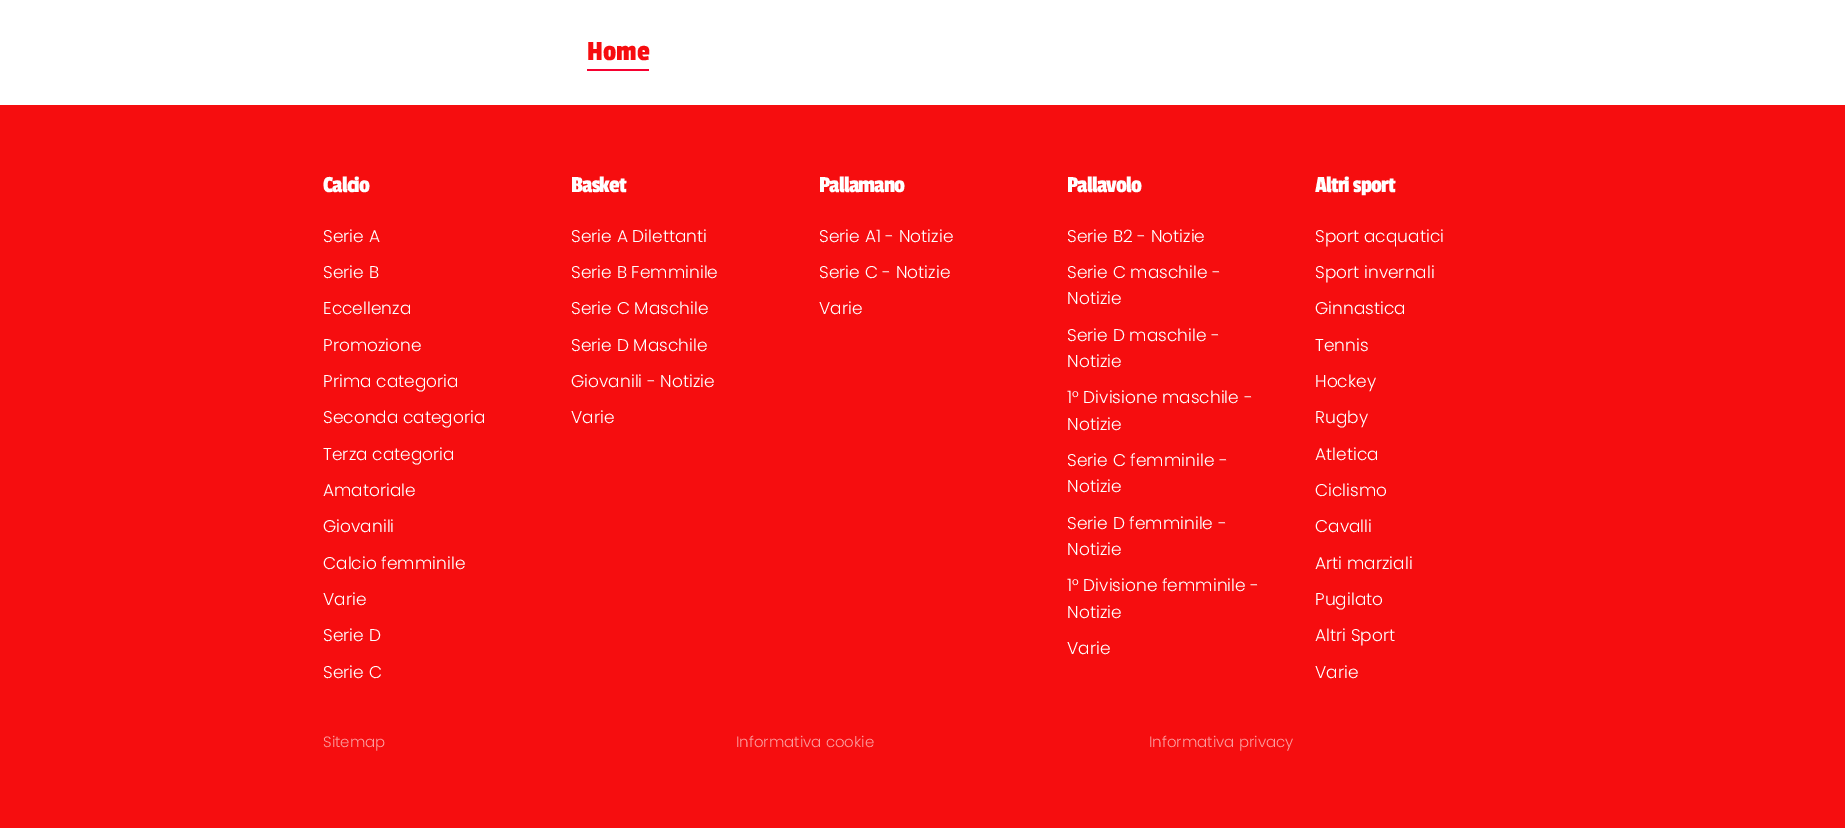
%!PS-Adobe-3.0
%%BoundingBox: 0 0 1845 828
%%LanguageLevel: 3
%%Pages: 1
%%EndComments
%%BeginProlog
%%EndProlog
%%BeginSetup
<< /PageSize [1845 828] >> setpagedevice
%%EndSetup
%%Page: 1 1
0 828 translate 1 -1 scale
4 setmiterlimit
0.965 0.051 0.059 setrgbcolor
0 0 1845 828 rectfill
1 setgray
0 0 1845 105 rectfill
0.965 0.004 0.188 setrgbcolor
587 69 62 2 rectfill
/PassionOne-Regular [29 0 0 -29 0 0] selectfont
0.965 0.051 0.059 setrgbcolor
587 60 moveto (Home) show
/PassionOne-Regular [24 0 0 -24 0 0] selectfont
1 setgray
323 192 moveto -0.8 0 (Calcio) ashow
/Poppins-Light [17 0 0 -17 0 0] selectfont
323 242 moveto (Serie A) show
323 278 moveto (Serie B) show
323 314 moveto (Eccellenza) show
323 351 moveto (Promozione) show
323 387 moveto (Prima categoria) show
323 423 moveto (Seconda categoria) show
323 460 moveto (Terza categoria) show
323 496 moveto (Amatoriale) show
323 532 moveto (Giovanili) show
323 569 moveto (Calcio femminile) show
323 605 moveto (Varie) show
323 641 moveto (Serie D) show
323 678 moveto (Serie C) show
/PassionOne-Regular [24 0 0 -24 0 0] selectfont
571 192 moveto -0.8 0 (Basket) ashow
/Poppins-Light [17 0 0 -17 0 0] selectfont
571 242 moveto (Serie A Dilettanti) show
571 278 moveto (Serie B Femminile) show
571 314 moveto (Serie C Maschile) show
571 351 moveto (Serie D Maschile) show
571 387 moveto (Giovanili - Notizie) show
571 423 moveto (Varie) show
/PassionOne-Regular [24 0 0 -24 0 0] selectfont
819 192 moveto -0.8 0 (Pallamano) ashow
/Poppins-Light [17 0 0 -17 0 0] selectfont
819 242 moveto (Serie A1 - Notizie) show
819 278 moveto (Serie C - Notizie) show
819 314 moveto (Varie) show
/PassionOne-Regular [24 0 0 -24 0 0] selectfont
1067 192 moveto -0.8 0 (Pallavolo) ashow
/Poppins-Light [17 0 0 -17 0 0] selectfont
1067 242 moveto (Serie B2 - Notizie) show
1067 278 moveto (Serie C maschile -) show
1067 304 moveto (Notizie) show
1067 341 moveto (Serie D maschile -) show
1067 367 moveto (Notizie) show
1067 403 moveto (1° Divisione maschile -) show
1067 430 moveto (Notizie) show
1067 466 moveto (Serie C femminile -) show
1067 492 moveto (Notizie) show
1067 529 moveto (Serie D femminile -) show
1067 555 moveto (Notizie) show
1067 591 moveto (1° Divisione femminile -) show
1067 618 moveto (Notizie) show
1067 654 moveto (Varie) show
/PassionOne-Regular [24 0 0 -24 0 0] selectfont
1315 192 moveto -0.8 0 (Altri sport) ashow
/Poppins-Light [17 0 0 -17 0 0] selectfont
1315 242 moveto (Sport acquatici) show
1315 278 moveto (Sport invernali) show
1315 314 moveto (Ginnastica) show
1315 351 moveto (Tennis) show
1315 387 moveto (Hockey) show
1315 423 moveto (Rugby) show
1315 460 moveto (Atletica) show
1315 496 moveto (Ciclismo) show
1315 532 moveto (Cavalli) show
1315 569 moveto (Arti marziali) show
1315 605 moveto (Pugilato) show
1315 641 moveto (Altri Sport) show
1315 678 moveto (Varie) show
/Poppins-Light [15 0 0 -15 0 0] selectfont
0.984 0.62 0.624 setrgbcolor
323 747 moveto (Sitemap) show
736 747 moveto (Informativa cookie) show
1149 747 moveto (Informativa privacy) show
showpage
%%EOF
